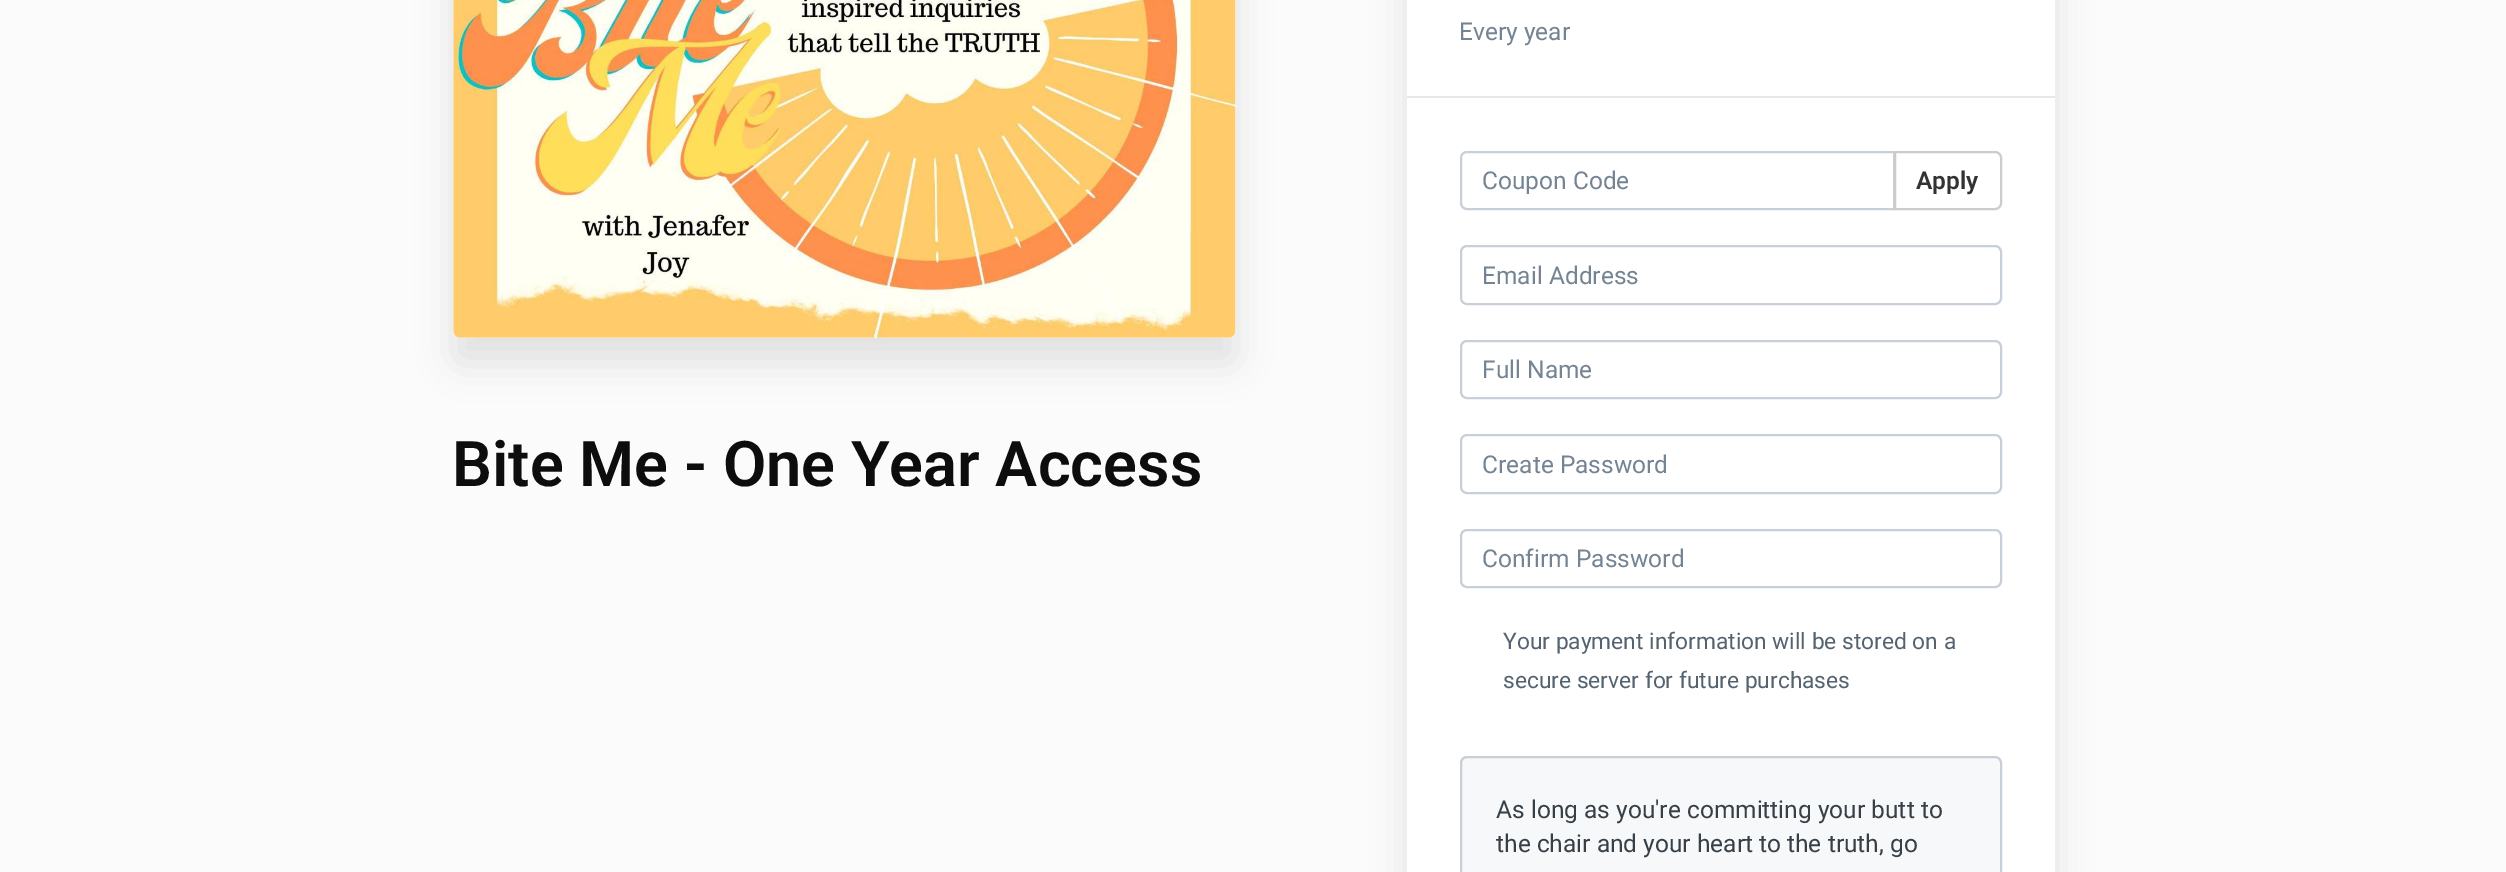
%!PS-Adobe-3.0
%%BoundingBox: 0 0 2506 872
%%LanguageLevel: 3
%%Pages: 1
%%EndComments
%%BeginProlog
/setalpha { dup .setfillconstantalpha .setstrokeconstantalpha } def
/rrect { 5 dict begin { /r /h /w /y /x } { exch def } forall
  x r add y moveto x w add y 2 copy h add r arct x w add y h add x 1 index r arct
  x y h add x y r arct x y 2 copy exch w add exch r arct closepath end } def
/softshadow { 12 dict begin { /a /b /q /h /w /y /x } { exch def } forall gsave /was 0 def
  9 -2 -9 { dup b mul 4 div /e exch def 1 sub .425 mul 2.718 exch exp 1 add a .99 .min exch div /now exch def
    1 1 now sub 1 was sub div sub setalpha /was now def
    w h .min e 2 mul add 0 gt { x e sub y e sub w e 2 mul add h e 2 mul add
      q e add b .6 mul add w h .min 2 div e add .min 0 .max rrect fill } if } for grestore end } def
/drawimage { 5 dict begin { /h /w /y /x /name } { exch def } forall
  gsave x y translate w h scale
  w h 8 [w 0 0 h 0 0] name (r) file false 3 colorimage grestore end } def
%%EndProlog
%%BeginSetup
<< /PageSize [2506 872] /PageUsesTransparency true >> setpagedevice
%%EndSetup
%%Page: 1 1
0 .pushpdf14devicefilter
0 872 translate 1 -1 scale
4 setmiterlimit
0.984 setgray
0 0 2506 872 rectfill
0 setgray
453 -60 783 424 7 17.5 0.1 softshadow
(images/1.raw) 453 0 783 338 drawimage
1407 -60 648 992 7 17.5 0.1 softshadow
1 setgray
1407 0 648 872 rectfill
0.898 0.914 0.914 setrgbcolor
1407 96 648 2 rectfill
0.78 0.812 0.847 setrgbcolor
2 setlinewidth
newpath 1467 152 moveto 1894 152 lineto 1894 209 lineto 1467 209 lineto 1463.5 209 1461 206.5 1461 203 curveto 1461 158 lineto 1461 154.5 1463.5 152 1467 152 curveto closepath stroke
1 setgray
newpath 1895 152 moveto 1995 152 lineto 1998.5 152 2001 154.5 2001 158 curveto 2001 203 lineto 2001 206.5 1998.5 209 1995 209 curveto 1895 209 lineto closepath gsave fill grestore
0.8 setgray
stroke
0.78 0.812 0.847 setrgbcolor
1461 246 540 58 6 rrect stroke
1461 341 540 57 6 rrect stroke
1461 435 540 58 6 rrect stroke
1461 530 540 57 6 rrect stroke
0.965 0.973 0.976 setrgbcolor
1461 757 540 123 6 rrect gsave fill grestore
0.78 0.812 0.847 setrgbcolor
stroke
/Roboto-SemiBold [63 0 0 -63 0 0] selectfont
0.051 setgray
452 486 moveto (Bite Me - One Year Access) show
/Roboto-Regular [24.5 0 0 -24.5 0 0] selectfont
0.455 0.518 0.576 setrgbcolor
1459 40 moveto (Every year) show
1482 189 moveto (Coupon Code) show
/Roboto-SemiBold [24.5 0 0 -24.5 0 0] selectfont
0.2 setgray
1916 189 moveto (Apply) show
/Roboto-Regular [24.5 0 0 -24.5 0 0] selectfont
0.455 0.518 0.576 setrgbcolor
1482 284 moveto (Email Address) show
1482 378 moveto (Full Name) show
1482 473 moveto (Create Password) show
1482 567 moveto (Confirm Password) show
/Roboto-Regular [22.75 0 0 -22.75 0 0] selectfont
0.333 0.388 0.439 setrgbcolor
1503 649 moveto (Your payment information will be stored on a) show
1503 688 moveto (secure server for future purchases) show
/Roboto-Regular [24.5 0 0 -24.5 0 0] selectfont
0.216 0.247 0.278 setrgbcolor
1496 818 moveto (As long as you're committing your butt to) show
1496 852 moveto (the chair and your heart to the truth, go) show
.poppdf14devicefilter showpage
%%EOF
